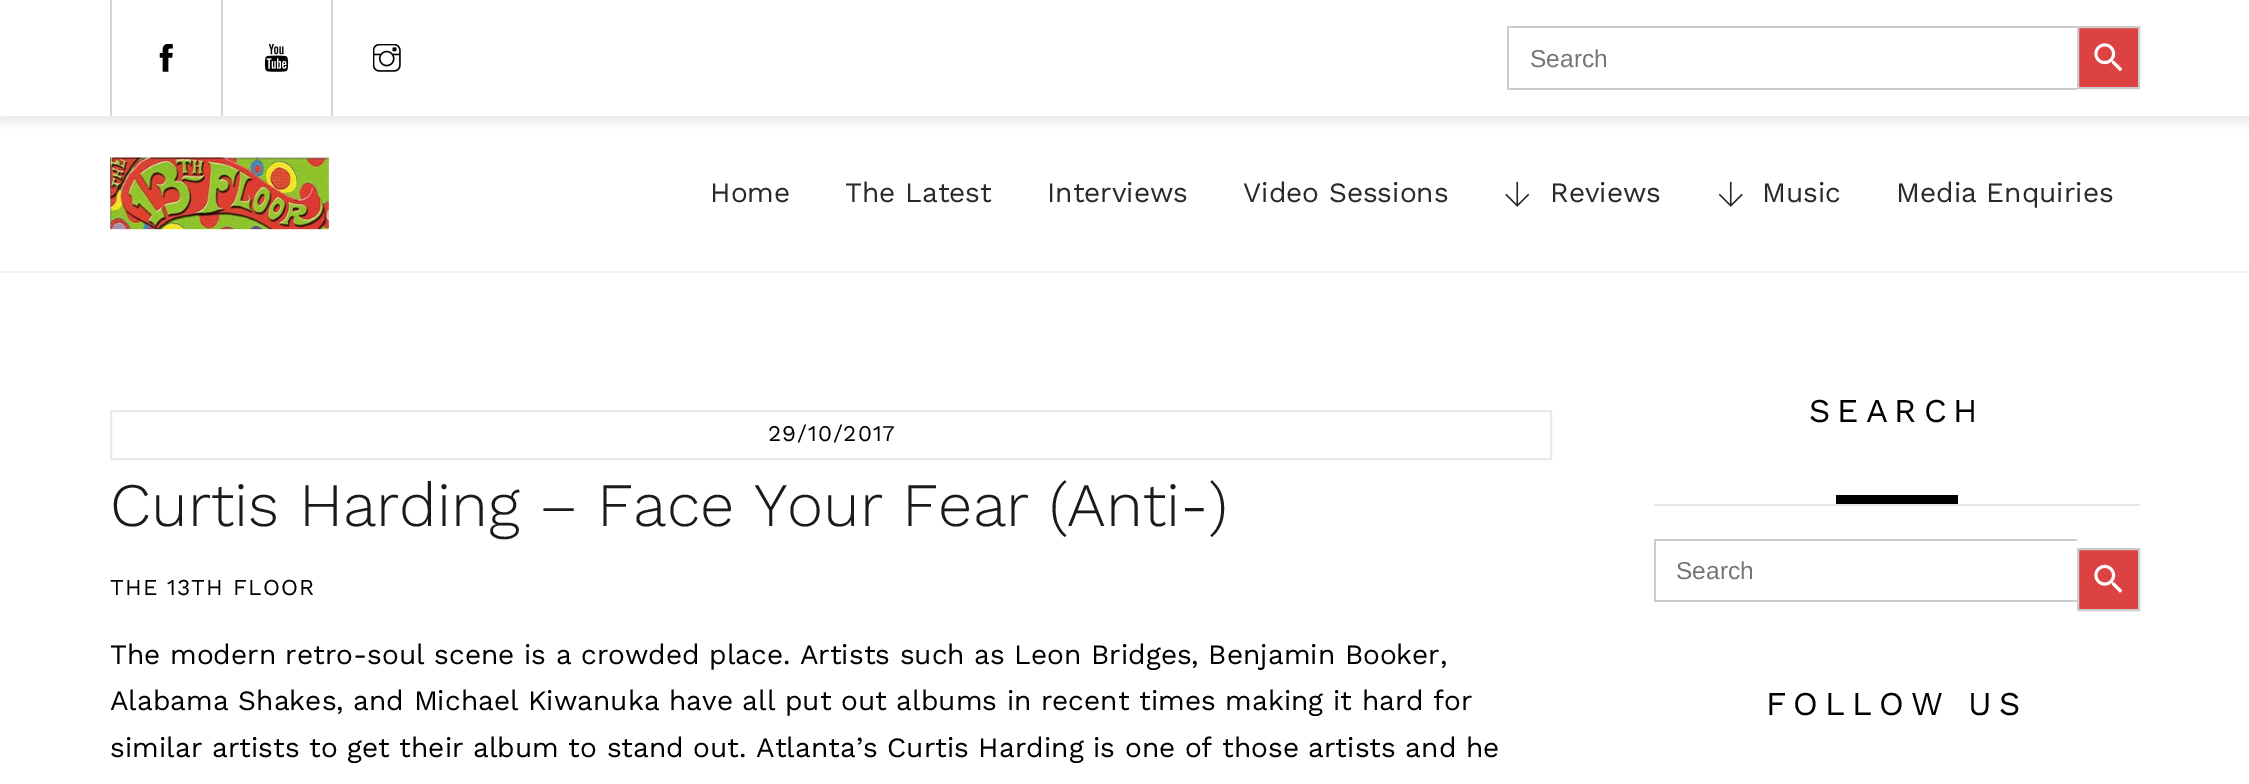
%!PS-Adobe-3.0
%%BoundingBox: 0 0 2249 784
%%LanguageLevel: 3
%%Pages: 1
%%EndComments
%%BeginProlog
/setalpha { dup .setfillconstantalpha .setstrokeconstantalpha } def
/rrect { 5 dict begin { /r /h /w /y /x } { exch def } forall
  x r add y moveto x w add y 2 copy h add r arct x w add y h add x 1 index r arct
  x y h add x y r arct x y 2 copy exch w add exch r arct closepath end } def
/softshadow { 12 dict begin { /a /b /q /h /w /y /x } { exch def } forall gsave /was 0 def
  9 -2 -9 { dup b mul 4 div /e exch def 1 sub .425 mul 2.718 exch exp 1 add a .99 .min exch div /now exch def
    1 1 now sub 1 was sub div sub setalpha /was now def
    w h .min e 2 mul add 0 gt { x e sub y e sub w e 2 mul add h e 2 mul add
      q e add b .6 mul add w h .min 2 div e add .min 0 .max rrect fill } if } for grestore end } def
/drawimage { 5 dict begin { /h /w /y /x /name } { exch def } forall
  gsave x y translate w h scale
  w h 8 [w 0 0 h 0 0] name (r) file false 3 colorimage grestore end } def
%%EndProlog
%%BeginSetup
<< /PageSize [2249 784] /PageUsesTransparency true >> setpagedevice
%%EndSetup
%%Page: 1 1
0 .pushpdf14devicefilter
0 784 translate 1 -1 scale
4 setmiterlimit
1 setgray
0 0 2249 784 rectfill
0 setgray
0 5 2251 116 0 6 0.1 softshadow
1 setgray
0 0 2249 116 rectfill
0.831 setgray
110 0 2 116 rectfill
(images/1.raw) 159 44 14 28 drawimage
221 0 2 116 rectfill
(images/2.raw) 264 44 25 28 drawimage
331 0 2 116 rectfill
(images/3.raw) 373 44 28 28 drawimage
0.8 setgray
1507 26 570 2 rectfill
1507 88 570 2 rectfill
1507 26 2 63 rectfill
0.867 0.259 0.259 setrgbcolor
newpath 2078 27 moveto 2139 27 lineto 2139 88 lineto 2078 88 lineto closepath gsave fill grestore
0.8 setgray
2 setlinewidth
stroke
(images/4.raw) 2094 43 29 29 drawimage
0.949 setgray
0 271 2249 2 rectfill
(images/5.raw) 110 157 219 73 drawimage
(images/6.raw) 1505 181 25 26 drawimage
(images/7.raw) 1718 181 25 26 drawimage
0.914 setgray
111 411 1440 48 rectstroke
0.898 setgray
1654 504 486 2 rectfill
0 setgray
1836 495 122 9 rectfill
0.8 setgray
1654 539 423 2 rectfill
1654 600 423 2 rectfill
1654 539 2 63 rectfill
0.867 0.259 0.259 setrgbcolor
newpath 2078 549 moveto 2139 549 lineto 2139 610 lineto 2078 610 lineto closepath gsave fill grestore
0.8 setgray
stroke
(images/8.raw) 2094 564 29 29 drawimage
/LiberationSans-Regular [24.5 0 0 -24.5 0 0] selectfont
0.459 setgray
1530 67 moveto (Search) show
/WorkSans-Regular [28 0 0 -28 0 0] selectfont
0.161 setgray
710 202 moveto (Home) show
845 202 moveto (The Latest) show
1047 202 moveto (Interviews) show
1243 202 moveto (Video Sessions) show
1550 202 moveto (Reviews) show
1762 202 moveto (Music) show
1896 202 moveto (Media Enquiries) show
/WorkSans-Regular [22.5 0 0 -22.5 0 0] selectfont
0 setgray
768 441 moveto 1 0 (29/10/2017) ashow
/WorkSans-Light [61.6 0 0 -61.6 0 0] selectfont
0.102 setgray
110 526 moveto (Curtis Harding – Face Your Fear \(Anti-\)) show
/WorkSans-Regular [22.75 0 0 -22.75 0 0] selectfont
0 setgray
110 595 moveto 1.1 0 (THE 13TH FLOOR) ashow
/WorkSans-Regular [28 0 0 -28 0 0] selectfont
110 664 moveto (The modern retro-soul scene is a crowded place. Artists such as Leon Bridges, Benjamin Booker,) show
110 710 moveto (Alabama Shakes, and Michael Kiwanuka have all put out albums in recent times making it hard for) show
110 757 moveto (similar artists to get their album to stand out. Atlanta’s Curtis Harding is one of those artists and he) show
/WorkSans-Regular [33.25 0 0 -33.25 0 0] selectfont
1809 422 moveto 7 0 (SEARCH) ashow
/LiberationSans-Regular [24.5 0 0 -24.5 0 0] selectfont
0.459 setgray
1676 579 moveto (Search) show
/WorkSans-Regular [33.25 0 0 -33.25 0 0] selectfont
0 setgray
1766 715 moveto 7 0 (FOLLOW US) ashow
.poppdf14devicefilter showpage
%%EOF
